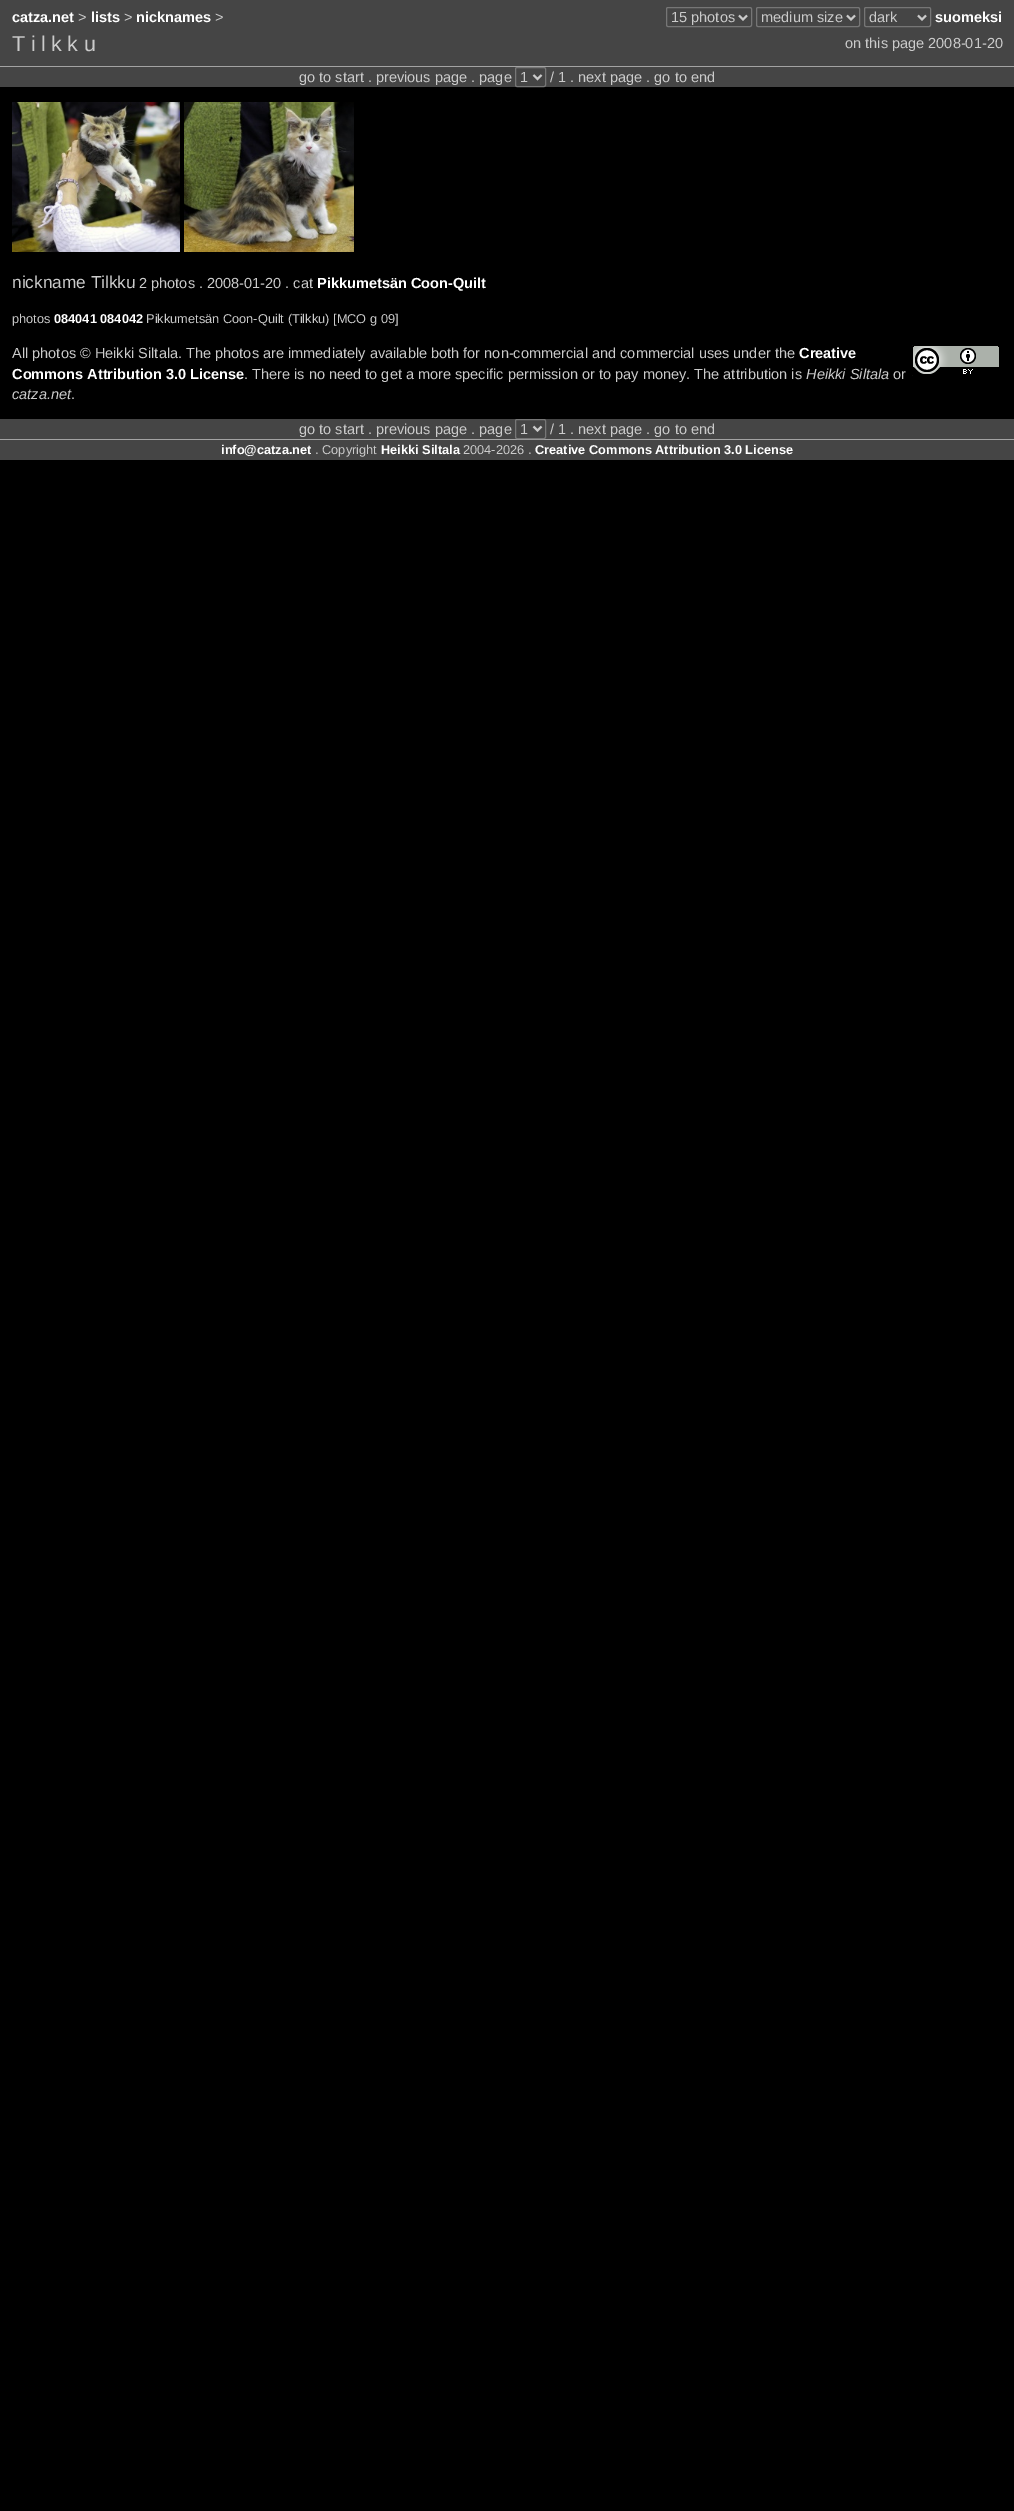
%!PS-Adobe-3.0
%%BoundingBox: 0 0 1014 2511
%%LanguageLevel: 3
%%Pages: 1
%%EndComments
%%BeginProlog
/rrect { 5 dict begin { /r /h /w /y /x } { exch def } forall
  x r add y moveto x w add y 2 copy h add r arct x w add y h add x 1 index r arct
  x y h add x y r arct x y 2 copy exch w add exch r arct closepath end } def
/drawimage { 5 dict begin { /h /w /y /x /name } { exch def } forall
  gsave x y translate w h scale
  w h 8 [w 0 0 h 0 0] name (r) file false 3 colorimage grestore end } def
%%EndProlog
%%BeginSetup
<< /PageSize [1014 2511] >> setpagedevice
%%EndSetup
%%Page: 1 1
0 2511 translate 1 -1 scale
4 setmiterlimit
0 setgray
0 0 1014 2511 rectfill
0.271 setgray
0 0 1014 87 rectfill
0.463 setgray
666.5 7.5 85 19 1.5 rrect stroke
0.796 setgray
2 setlinewidth
newpath 739 15.5 moveto 743 19.5 lineto 747 15.5 lineto stroke
0.463 setgray
1 setlinewidth
756.5 7.5 103 19 1.5 rrect stroke
0.796 setgray
2 setlinewidth
newpath 847 15.5 moveto 851 19.5 lineto 855 15.5 lineto stroke
0.463 setgray
1 setlinewidth
864.5 7.5 66 19 1.5 rrect stroke
0.796 setgray
2 setlinewidth
newpath 918 15.5 moveto 922 19.5 lineto 926 15.5 lineto stroke
0.639 setgray
0 66 1014 1 rectfill
0.463 setgray
1 setlinewidth
515.5 67.5 30 19 1.5 rrect stroke
0.796 setgray
2 setlinewidth
newpath 533.5 75 moveto 537.5 79 lineto 541.5 75 lineto stroke
(images/1.raw) 12 102 168 150 drawimage
(images/2.raw) 184 102 170 150 drawimage
(images/3.raw) 912 345 87 31 drawimage
0.271 setgray
0 419 1014 41 rectfill
0.639 setgray
0 439 1014 1 rectfill
0.463 setgray
1 setlinewidth
515.5 419.5 30 19 1.5 rrect stroke
0.796 setgray
2 setlinewidth
newpath 533.5 426.5 moveto 537.5 430.5 lineto 541.5 426.5 lineto stroke
/LiberationSans-Bold [14.55 0 0 -14.55 0 0] selectfont
1 setgray
12 22 moveto (catza.net) show
/LiberationSans-Regular [14.55 0 0 -14.55 0 0] selectfont
0.796 setgray
78 22 moveto (>) show
/LiberationSans-Bold [14.55 0 0 -14.55 0 0] selectfont
1 setgray
91 22 moveto (lists) show
/LiberationSans-Regular [14.55 0 0 -14.55 0 0] selectfont
0.796 setgray
124 22 moveto (>) show
/LiberationSans-Bold [14.55 0 0 -14.55 0 0] selectfont
1 setgray
136 22 moveto (nicknames) show
/LiberationSans-Regular [14.55 0 0 -14.55 0 0] selectfont
0.796 setgray
215 22 moveto (>) show
671 22 moveto (15 photos) show
761 22 moveto (medium size) show
869 22 moveto (dark) show
/LiberationSans-Bold [14.55 0 0 -14.55 0 0] selectfont
1 setgray
935 22 moveto (suomeksi) show
/LiberationSans-Regular [21.5 0 0 -21.5 0 0] selectfont
0.796 setgray
12 51 moveto 5.5 0 (Tilkku) ashow
/LiberationSans-Regular [14.55 0 0 -14.55 0 0] selectfont
845 48 moveto (on this page 2008-01-20) show
299 82 moveto (go to start . previous page . page) show
520 82 moveto (1) show
550 82 moveto (/ 1 . next page . go to end) show
/LiberationSans-Regular [17.25 0 0 -17.25 0 0] selectfont
12 288 moveto (nickname Tilkku) show
/LiberationSans-Regular [14.55 0 0 -14.55 0 0] selectfont
139 288 moveto (2 photos . 2008-01-20 . cat) show
/LiberationSans-Bold [14.55 0 0 -14.55 0 0] selectfont
1 setgray
317 288 moveto (Pikkumetsän Coon-Quilt) show
/LiberationSans-Regular [12.8 0 0 -12.8 0 0] selectfont
0.796 setgray
12 323 moveto (photos) show
/LiberationSans-Bold [12.8 0 0 -12.8 0 0] selectfont
1 setgray
54 323 moveto (084041 084042) show
/LiberationSans-Regular [12.8 0 0 -12.8 0 0] selectfont
0.796 setgray
146 323 moveto (Pikkumetsän Coon-Quilt \(Tilkku\) [MCO g 09]) show
/LiberationSans-Regular [14.55 0 0 -14.55 0 0] selectfont
12 358 moveto (All photos © Heikki Siltala. The photos are immediately available both for non-commercial and commercial uses under the) show
/LiberationSans-Bold [14.55 0 0 -14.55 0 0] selectfont
1 setgray
799 358 moveto (Creative) show
12 379 moveto (Commons Attribution 3.0 License) show
/LiberationSans-Regular [14.55 0 0 -14.55 0 0] selectfont
0.796 setgray
244 379 moveto (. There is no need to get a more specific permission or to pay money. The attribution is) show
/LiberationSans-Italic [14.55 0 0 -14.55 0 0] selectfont
806 379 moveto (Heikki Siltala) show
/LiberationSans-Regular [14.55 0 0 -14.55 0 0] selectfont
893 379 moveto (or) show
/LiberationSans-Italic [14.55 0 0 -14.55 0 0] selectfont
12 399 moveto (catza.net) show
/LiberationSans-Regular [14.55 0 0 -14.55 0 0] selectfont
71 399 moveto (.) show
299 434 moveto (go to start . previous page . page) show
520 434 moveto (1) show
550 434 moveto (/ 1 . next page . go to end) show
/LiberationSans-Bold [12.8 0 0 -12.8 0 0] selectfont
1 setgray
221 454 moveto (info@catza.net) show
/LiberationSans-Regular [12.8 0 0 -12.8 0 0] selectfont
0.796 setgray
315 454 moveto (. Copyright) show
/LiberationSans-Bold [12.8 0 0 -12.8 0 0] selectfont
1 setgray
381 454 moveto (Heikki Siltala) show
/LiberationSans-Regular [12.8 0 0 -12.8 0 0] selectfont
0.796 setgray
463 454 moveto (2004-2026 .) show
/LiberationSans-Bold [12.8 0 0 -12.8 0 0] selectfont
1 setgray
535 454 moveto (Creative Commons Attribution 3.0 License) show
showpage
%%EOF
